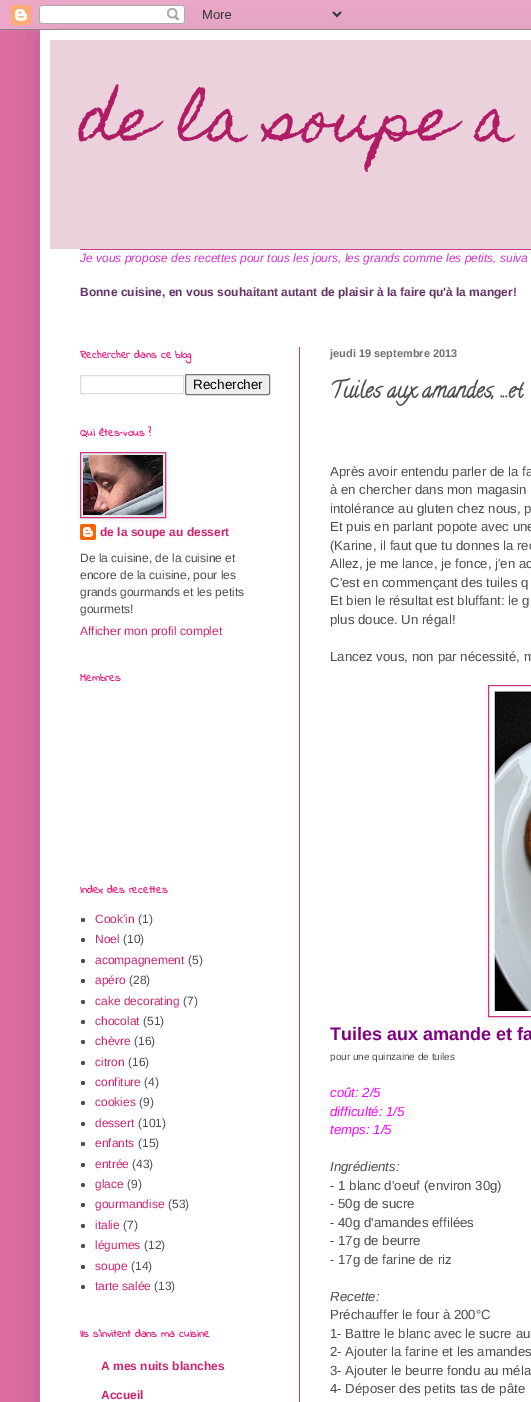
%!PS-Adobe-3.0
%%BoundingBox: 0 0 531 1402
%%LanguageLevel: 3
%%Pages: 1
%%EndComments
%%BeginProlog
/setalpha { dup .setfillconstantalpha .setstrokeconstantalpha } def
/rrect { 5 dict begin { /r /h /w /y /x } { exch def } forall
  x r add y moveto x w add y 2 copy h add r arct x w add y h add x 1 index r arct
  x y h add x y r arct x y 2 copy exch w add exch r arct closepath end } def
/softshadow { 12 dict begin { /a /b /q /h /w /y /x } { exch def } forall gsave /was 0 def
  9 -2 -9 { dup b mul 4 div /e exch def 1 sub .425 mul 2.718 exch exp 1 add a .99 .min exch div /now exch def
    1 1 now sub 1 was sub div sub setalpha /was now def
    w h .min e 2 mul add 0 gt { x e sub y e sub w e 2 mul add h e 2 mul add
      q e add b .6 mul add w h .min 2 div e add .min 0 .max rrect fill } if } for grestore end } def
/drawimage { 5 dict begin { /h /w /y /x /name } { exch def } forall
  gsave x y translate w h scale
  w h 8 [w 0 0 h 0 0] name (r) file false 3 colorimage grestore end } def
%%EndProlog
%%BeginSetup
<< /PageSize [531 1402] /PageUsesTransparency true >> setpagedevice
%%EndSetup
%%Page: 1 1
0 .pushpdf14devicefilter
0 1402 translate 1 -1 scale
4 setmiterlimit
0.871 0.431 0.647 setrgbcolor
0 0 531 1402 rectfill
0 setgray
40 30 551 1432 0 20 0.15 softshadow
(images/1.raw) 0 0 531 30 drawimage
1 setgray
40 30 491 1372 rectfill
0.918 0.82 0.863 setrgbcolor
50 40 481 209 rectfill
0.784 0.216 0.514 setrgbcolor
80 249 451 1 rectfill
299 347 1 1055 rectfill
0.867 setgray
80.5 375.5 103 18 rectstroke
0.937 setgray
185.5 374.5 84 20 1.5 rrect gsave fill grestore
0.463 setgray
stroke
(images/3.raw) 80 524 16 16 drawimage
0 setgray
81 453 86 66 0 2.5 0.1 softshadow
0.784 0.216 0.514 setrgbcolor
80.5 452.5 85 65 rectstroke
(images/2.raw) 83 455 80 60 drawimage
0.298 setgray
newpath 83 920 2 0 360 arc closepath fill
newpath 83 940 2 0 360 arc closepath fill
newpath 83 961 2 0 360 arc closepath fill
newpath 83 981 2 0 360 arc closepath fill
newpath 83 1002 2 0 360 arc closepath fill
newpath 83 1022 2 0 360 arc closepath fill
newpath 83 1042 2 0 360 arc closepath fill
newpath 83 1063 2 0 360 arc closepath fill
newpath 83 1083 2 0 360 arc closepath fill
newpath 83 1103 2 0 360 arc closepath fill
newpath 83 1124 2 0 360 arc closepath fill
newpath 83 1144 2 0 360 arc closepath fill
newpath 83 1165 2 0 360 arc closepath fill
newpath 83 1185 2 0 360 arc closepath fill
newpath 83 1205 2 0 360 arc closepath fill
newpath 83 1226 2 0 360 arc closepath fill
newpath 83 1246 2 0 360 arc closepath fill
newpath 83 1267 2 0 360 arc closepath fill
newpath 83 1287 2 0 360 arc closepath fill
gsave
newpath 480 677 moveto 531 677 lineto 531 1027 lineto 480 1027 lineto closepath 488 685 moveto 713 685 lineto 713 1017 lineto 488 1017 lineto closepath eoclip newpath
0 setgray
489 686 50 332 0 2.5 0.1 softshadow
grestore
0.784 0.216 0.514 setrgbcolor
488.5 685.5 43 331 rectstroke
(images/4.raw) 494 691 37 320 drawimage
/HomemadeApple-Regular [60 0 0 -60 0 0] selectfont
0.69 0.114 0.4 setrgbcolor
80 140 moveto (de la soupe a) show
/LiberationSans-Italic [12 0 0 -12 0 0] selectfont
0.8 0.2 0.8 setrgbcolor
80 262 moveto (Je vous propose des recettes pour tous les jours, les grands comme les petits, suiva) show
/LiberationSans-Bold [12 0 0 -12 0 0] selectfont
0.4 0.2 0.4 setrgbcolor
80 296 moveto (Bonne cuisine, en vous souhaitant autant de plaisir à la faire qu'à la manger!) show
/IndieFlower-Bold [11 0 0 -11 0 0] selectfont
0.89 0.059 0.475 setrgbcolor
80 358 moveto (Rechercher dans ce blog) show
/LiberationSans-Regular [13.5 0 0 -13.5 0 0] selectfont
0 setgray
193 389 moveto (Rechercher) show
/IndieFlower-Bold [11 0 0 -11 0 0] selectfont
0.89 0.059 0.475 setrgbcolor
80 436 moveto (Qui êtes-vous ?) show
/LiberationSans-Bold [12 0 0 -12 0 0] selectfont
0.8 0.145 0.435 setrgbcolor
100 536 moveto (de la soupe au dessert) show
/LiberationSans-Regular [12 0 0 -12 0 0] selectfont
0.298 setgray
80 562 moveto (De la cuisine, de la cuisine et) show
80 579 moveto (encore de la cuisine, pour les) show
80 596 moveto (grands gourmands et les petits) show
80 613 moveto (gourmets!) show
0.8 0.145 0.435 setrgbcolor
80 635 moveto (Afficher mon profil complet) show
/IndieFlower-Bold [11 0 0 -11 0 0] selectfont
0.89 0.059 0.475 setrgbcolor
80 681 moveto (Membres) show
80 893 moveto (Index des recettes) show
/LiberationSans-Regular [12 0 0 -12 0 0] selectfont
0.8 0.145 0.435 setrgbcolor
95 923 moveto (Cook'in) show
0.298 setgray
138 923 moveto (\(1\)) show
0.8 0.145 0.435 setrgbcolor
95 943 moveto (Noel) show
0.298 setgray
123 943 moveto (\(10\)) show
0.8 0.145 0.435 setrgbcolor
95 964 moveto (acompagnement) show
0.298 setgray
188 964 moveto (\(5\)) show
0.8 0.145 0.435 setrgbcolor
95 984 moveto (apéro) show
0.298 setgray
129 984 moveto (\(28\)) show
0.8 0.145 0.435 setrgbcolor
95 1005 moveto (cake decorating) show
0.298 setgray
183 1005 moveto (\(7\)) show
0.8 0.145 0.435 setrgbcolor
95 1025 moveto (chocolat) show
0.298 setgray
143 1025 moveto (\(51\)) show
0.8 0.145 0.435 setrgbcolor
95 1045 moveto (chèvre) show
0.298 setgray
134 1045 moveto (\(16\)) show
0.8 0.145 0.435 setrgbcolor
95 1066 moveto (citron) show
0.298 setgray
128 1066 moveto (\(16\)) show
0.8 0.145 0.435 setrgbcolor
95 1086 moveto (confiture) show
0.298 setgray
144 1086 moveto (\(4\)) show
0.8 0.145 0.435 setrgbcolor
95 1106 moveto (cookies) show
0.298 setgray
139 1106 moveto (\(9\)) show
0.8 0.145 0.435 setrgbcolor
95 1127 moveto (dessert) show
0.298 setgray
138 1127 moveto (\(101\)) show
0.8 0.145 0.435 setrgbcolor
95 1147 moveto (enfants) show
0.298 setgray
138 1147 moveto (\(15\)) show
0.8 0.145 0.435 setrgbcolor
95 1168 moveto (entrée) show
0.298 setgray
132 1168 moveto (\(43\)) show
0.8 0.145 0.435 setrgbcolor
95 1188 moveto (glace) show
0.298 setgray
127 1188 moveto (\(9\)) show
0.8 0.145 0.435 setrgbcolor
95 1208 moveto (gourmandise) show
0.298 setgray
168 1208 moveto (\(53\)) show
0.8 0.145 0.435 setrgbcolor
95 1229 moveto (italie) show
0.298 setgray
123 1229 moveto (\(7\)) show
0.8 0.145 0.435 setrgbcolor
95 1249 moveto (légumes) show
0.298 setgray
144 1249 moveto (\(12\)) show
0.8 0.145 0.435 setrgbcolor
95 1270 moveto (soupe) show
0.298 setgray
131 1270 moveto (\(14\)) show
0.8 0.145 0.435 setrgbcolor
95 1290 moveto (tarte salée) show
0.298 setgray
154 1290 moveto (\(13\)) show
/IndieFlower-Bold [11 0 0 -11 0 0] selectfont
0.89 0.059 0.475 setrgbcolor
80 1337 moveto (Ils s'invitent dans ma cuisine) show
/LiberationSans-Bold [12 0 0 -12 0 0] selectfont
0.8 0.145 0.435 setrgbcolor
101 1370 moveto (A mes nuits blanches) show
101 1399 moveto (Accueil) show
/LiberationSans-Bold [11 0 0 -11 0 0] selectfont
0.443 setgray
330 357 moveto (jeudi 19 septembre 2013) show
/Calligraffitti-Bold [22 0 0 -22 0 0] selectfont
0.298 setgray
330 397 moveto (Tuiles aux amandes, ...et) show
/LiberationSans-Regular [13.25 0 0 -13.25 0 0] selectfont
330 476 moveto (Après avoir entendu parler de la fa) show
330 494 moveto (à en chercher dans mon magasin) show
330 513 moveto (intolérance au gluten chez nous, p) show
330 531 moveto (Et puis en parlant popote avec une) show
330 550 moveto (\(Karine, il faut que tu donnes la rec) show
330 568 moveto (Allez, je me lance, je fonce, j'en ac) show
330 587 moveto (C'est en commençant des tuiles q) show
330 605 moveto (Et bien le résultat est bluffant: le g) show
330 624 moveto (plus douce. Un régal!) show
330 661 moveto (Lancez vous, non par nécessité, m) show
/LiberationSans-Bold [18 0 0 -18 0 0] selectfont
0.502 0 0.502 setrgbcolor
330 1040 moveto (Tuiles aux amande et fa) show
/LiberationSans-Regular [10 0 0 -10 0 0] selectfont
0.298 setgray
330 1060 moveto (pour une quinzaine de tuiles) show
/LiberationSans-Italic [13.25 0 0 -13.25 0 0] selectfont
1 0 1 setrgbcolor
330 1097 moveto (coût: 2/5) show
330 1116 moveto (difficulté: 1/5) show
330 1134 moveto (temps: 1/5) show
0.298 setgray
330 1171 moveto (Ingrédients:) show
/LiberationSans-Regular [13.25 0 0 -13.25 0 0] selectfont
330 1190 moveto (- 1 blanc d'oeuf \(environ 30g\)) show
330 1208 moveto (- 50g de sucre) show
330 1227 moveto (- 40g d'amandes effilées) show
330 1245 moveto (- 17g de beurre) show
330 1264 moveto (- 17g de farine de riz) show
/LiberationSans-Italic [13.25 0 0 -13.25 0 0] selectfont
330 1301 moveto (Recette:) show
/LiberationSans-Regular [13.25 0 0 -13.25 0 0] selectfont
330 1319 moveto (Préchauffer le four à 200°C) show
330 1338 moveto (1- Battre le blanc avec le sucre au) show
330 1356 moveto (2- Ajouter la farine et les amandes) show
330 1375 moveto (3- Ajouter le beurre fondu au méla) show
330 1393 moveto (4- Déposer des petits tas de pâte) show
.poppdf14devicefilter showpage
%%EOF
